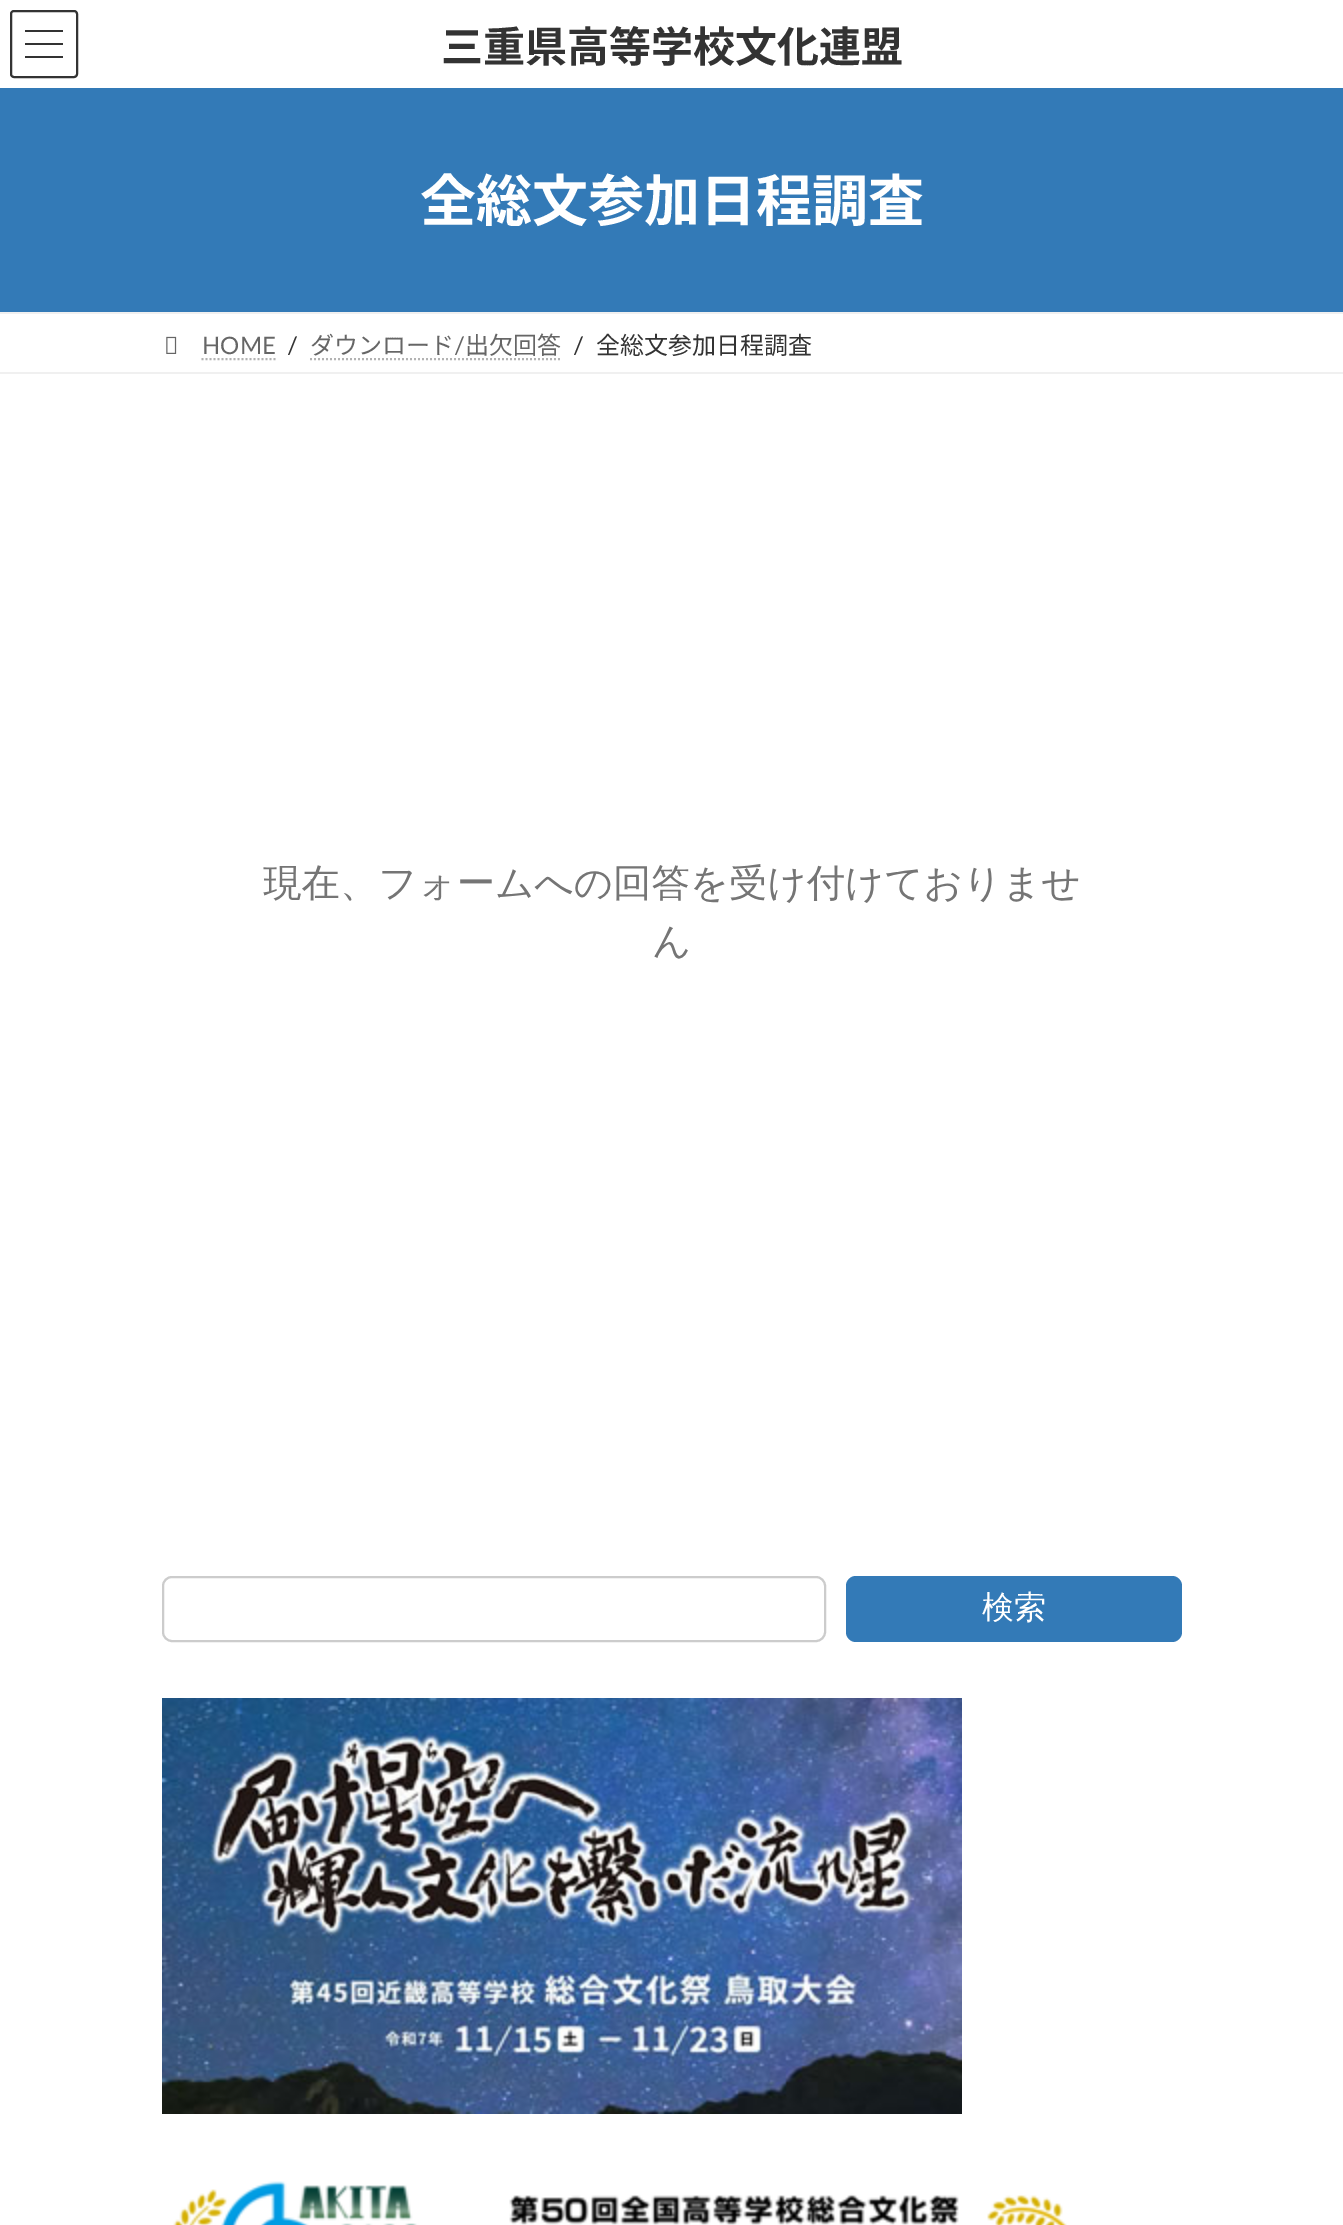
%!PS-Adobe-3.0
%%BoundingBox: 0 0 1343 2225
%%LanguageLevel: 3
%%Pages: 1
%%EndComments
%%BeginProlog
/rrect { 5 dict begin { /r /h /w /y /x } { exch def } forall
  x r add y moveto x w add y 2 copy h add r arct x w add y h add x 1 index r arct
  x y h add x y r arct x y 2 copy exch w add exch r arct closepath end } def
/drawimage { 5 dict begin { /h /w /y /x /name } { exch def } forall
  gsave x y translate w h scale
  w h 8 [w 0 0 h 0 0] name (r) file false 3 colorimage grestore end } def
%%EndProlog
%%BeginSetup
<< /PageSize [1343 2225] >> setpagedevice
%%EndSetup
%%Page: 1 1
0 2225 translate 1 -1 scale
4 setmiterlimit
1 setgray
0 0 1343 2225 rectfill
0.2 setgray
25 30 38 2 rectfill
25 43 38 2 rectfill
25 56 38 2 rectfill
2 setlinewidth
11 11 66 66 3 rrect stroke
0.2 0.478 0.718 setrgbcolor
0 88 1343 224 rectfill
0.941 setgray
0 312 1343 2 rectfill
0 372 1343 2 rectfill
(images/1.raw) 166 336 11 18 drawimage
0.702 setgray
[2 2] 0 setdash
newpath 201.5 359 moveto 275.5 359 lineto stroke
newpath 310 359 moveto 561 359 lineto stroke
(images/2.raw) 263 864 816 95 drawimage
0.8 setgray
[] 0 setdash
163 1577 662 64 9 rrect stroke
0.2 0.478 0.718 setrgbcolor
846 1576 336 66 10 rrect fill
(images/3.raw) 162 1698 800 416 drawimage
(images/4.raw) 173 2181 894 44 drawimage
/NotoSansJP-Bold [42 0 0 -42 0 0] selectfont
0.2 setgray
441 62 moveto (三重県高等学校文化連盟) show
/NotoSansJP-Bold [56 0 0 -56 0 0] selectfont
1 setgray
420 221 moveto (全総文参加日程調査) show
/Lato-Regular [24 0 0 -24 0 0] selectfont
0.4 setgray
202 354 moveto (HOME) show
0.2 setgray
287 354 moveto (/) show
/NotoSansJP-Regular [24 0 0 -24 0 0] selectfont
0.4 setgray
310 354 moveto (ダウンロード) show
/Lato-Regular [24 0 0 -24 0 0] selectfont
454 354 moveto (/) show
/NotoSansJP-Regular [24 0 0 -24 0 0] selectfont
465 354 moveto (出欠回答) show
/Lato-Regular [24 0 0 -24 0 0] selectfont
0.2 setgray
573 354 moveto (/) show
/NotoSansJP-Regular [24 0 0 -24 0 0] selectfont
596 354 moveto (全総文参加日程調査) show
/WenQuanYiZenHei-Medium [32 0 0 -32 0 0] selectfont
1 setgray
982 1618 moveto (検索) show
showpage
%%EOF
